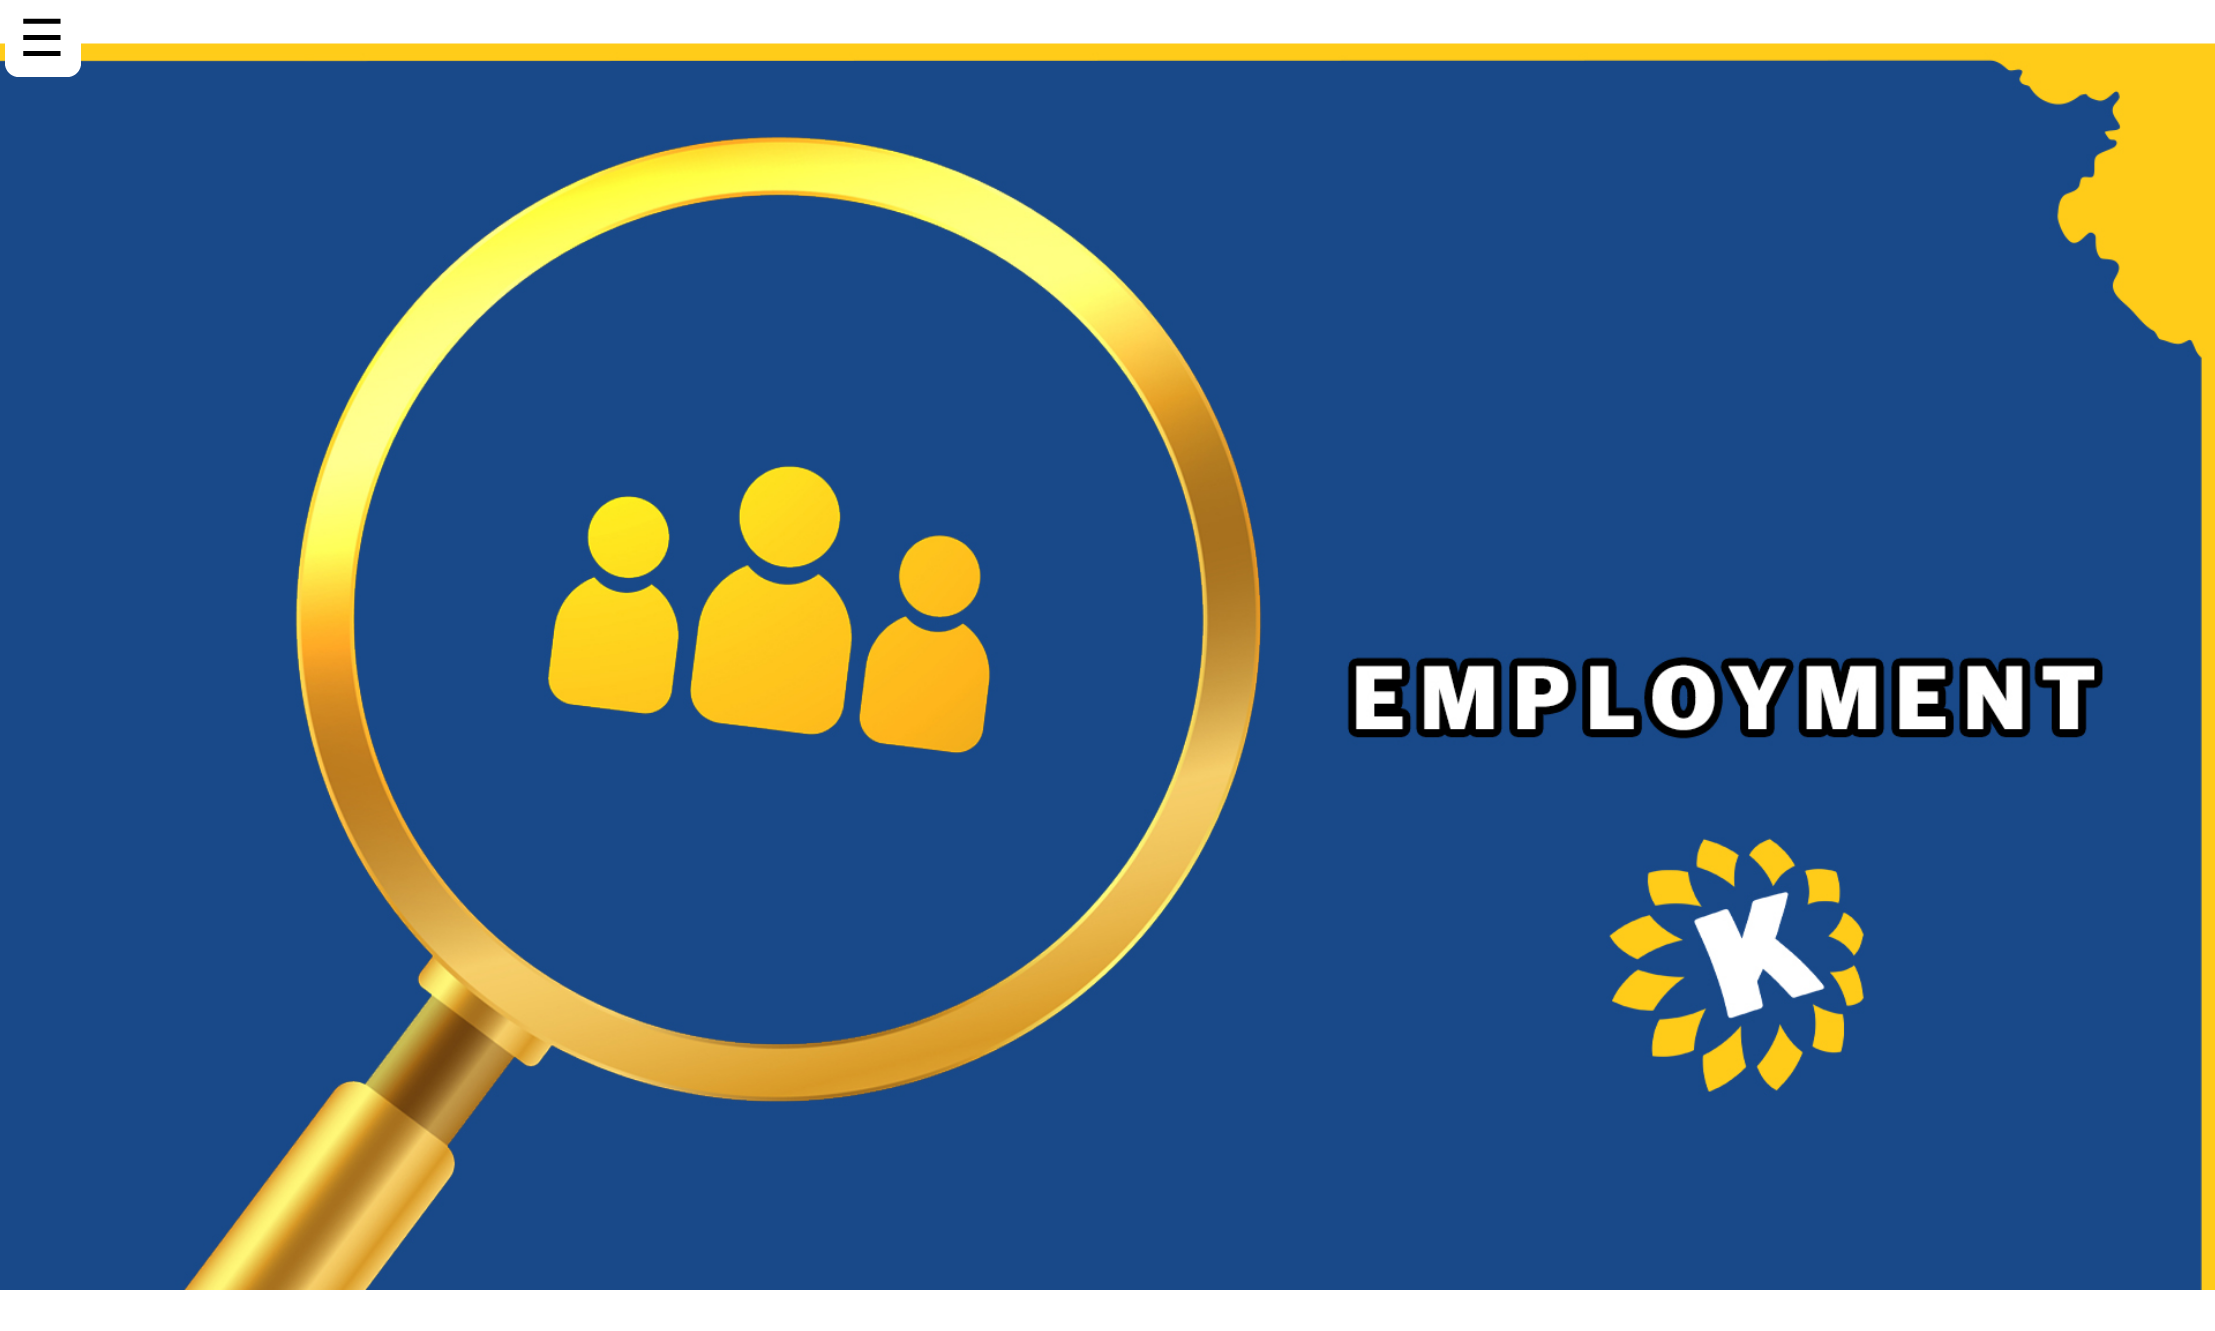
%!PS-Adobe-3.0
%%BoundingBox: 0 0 2215 1331
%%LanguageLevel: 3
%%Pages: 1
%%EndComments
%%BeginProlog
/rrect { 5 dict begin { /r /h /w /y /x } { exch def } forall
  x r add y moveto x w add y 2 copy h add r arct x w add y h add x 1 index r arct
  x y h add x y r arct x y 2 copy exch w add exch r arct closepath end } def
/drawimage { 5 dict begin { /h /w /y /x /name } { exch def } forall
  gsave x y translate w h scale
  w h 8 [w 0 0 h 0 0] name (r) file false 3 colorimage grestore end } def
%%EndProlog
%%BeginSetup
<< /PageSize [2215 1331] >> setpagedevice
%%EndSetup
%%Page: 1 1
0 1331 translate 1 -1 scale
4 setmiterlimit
1 setgray
0 0 2215 1331 rectfill
(images/1.raw) 0 43 2215 1247 drawimage
5 0 76 77 14 rrect fill
/DejaVuSans-Regular [51 0 0 -51 0 0] selectfont
0 setgray
19 56 moveto (☰) show
showpage
%%EOF
